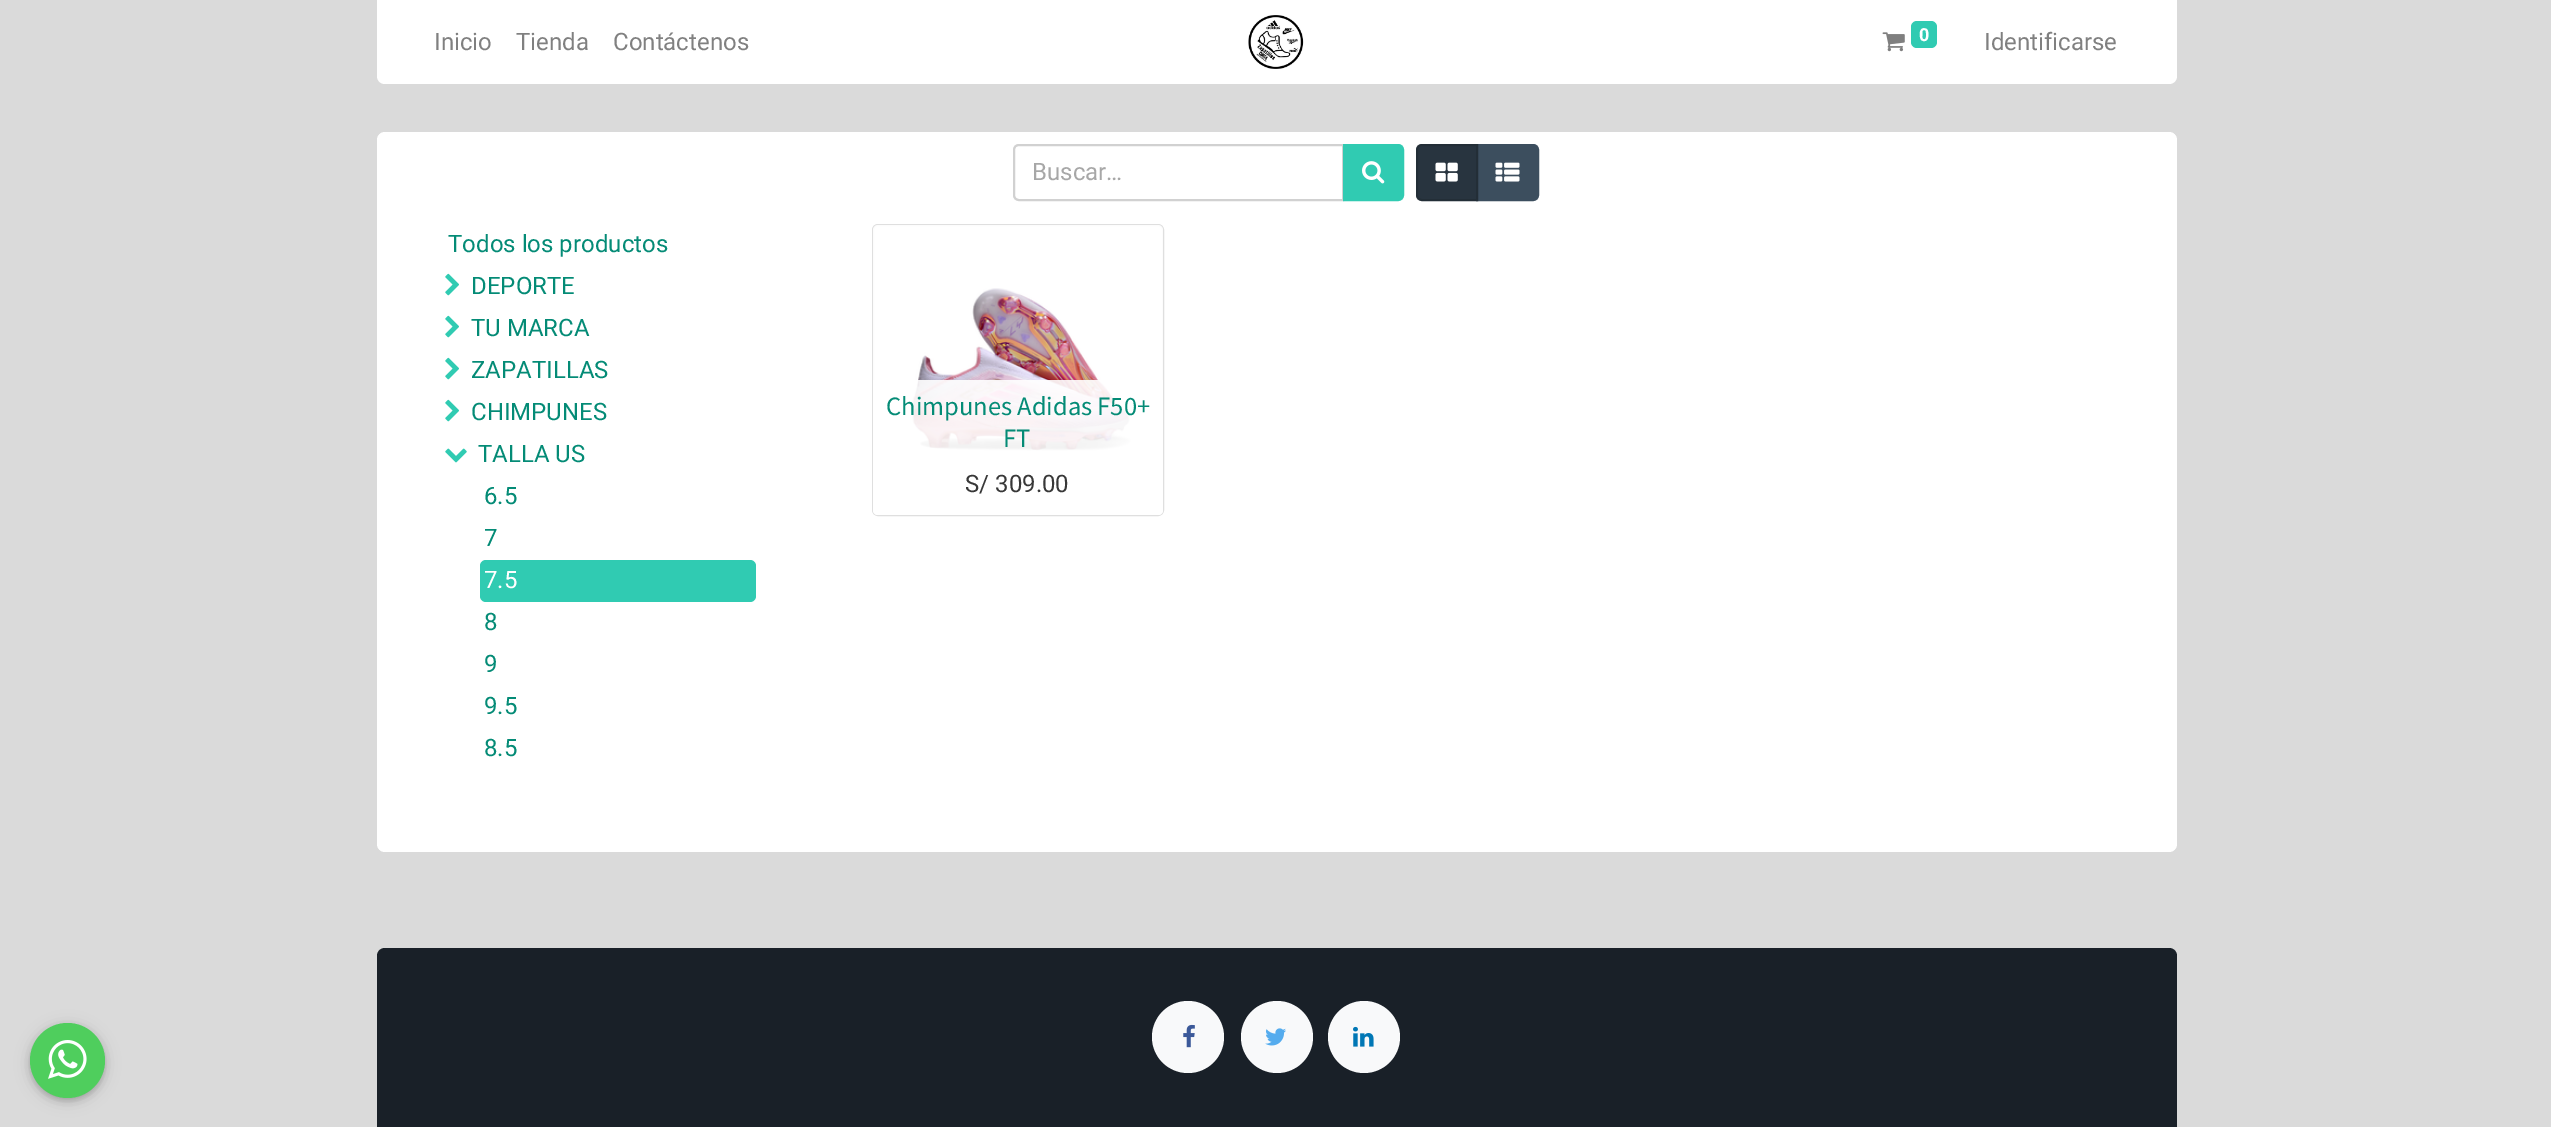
%!PS-Adobe-3.0
%%BoundingBox: 0 0 2551 1127
%%LanguageLevel: 3
%%Pages: 1
%%EndComments
%%BeginProlog
/setalpha { dup .setfillconstantalpha .setstrokeconstantalpha } def
/rrect { 5 dict begin { /r /h /w /y /x } { exch def } forall
  x r add y moveto x w add y 2 copy h add r arct x w add y h add x 1 index r arct
  x y h add x y r arct x y 2 copy exch w add exch r arct closepath end } def
/softshadow { 12 dict begin { /a /b /q /h /w /y /x } { exch def } forall gsave /was 0 def
  9 -2 -9 { dup b mul 4 div /e exch def 1 sub .425 mul 2.718 exch exp 1 add a .99 .min exch div /now exch def
    1 1 now sub 1 was sub div sub setalpha /was now def
    w h .min e 2 mul add 0 gt { x e sub y e sub w e 2 mul add h e 2 mul add
      q e add b .6 mul add w h .min 2 div e add .min 0 .max rrect fill } if } for grestore end } def
/drawimage { 5 dict begin { /h /w /y /x /name } { exch def } forall
  gsave x y translate w h scale
  w h 8 [w 0 0 h 0 0] name (r) file false 3 colorimage grestore end } def
%%EndProlog
%%BeginSetup
<< /PageSize [2551 1127] /PageUsesTransparency true >> setpagedevice
%%EndSetup
%%Page: 1 1
0 .pushpdf14devicefilter
0 1127 translate 1 -1 scale
4 setmiterlimit
0.855 setgray
0 0 2551 1127 rectfill
1 setgray
newpath 377 0 moveto 2177 0 lineto 2177 76 lineto 2177 80.5 2173.5 84 2169 84 curveto 385 84 lineto 380.5 84 377 80.5 377 76 curveto closepath fill
(images/1.raw) 1248 15 56 54 drawimage
(images/2.raw) 1882 32 23 20 drawimage
0.188 0.796 0.698 setrgbcolor
1911 21 26 27 6 rrect fill
1 setgray
377 132 1800 720 8 rrect fill
0.82 setgray
2 setlinewidth
newpath 1019 145 moveto 1343 145 lineto 1343 200 lineto 1019 200 lineto 1016 200 1014 198 1014 195 curveto 1014 150 lineto 1014 147 1016 145 1019 145 curveto closepath stroke
0.188 0.796 0.698 setrgbcolor
newpath 1344 145 moveto 1398 145 lineto 1401 145 1403 147 1403 150 curveto 1403 195 lineto 1403 198 1401 200 1398 200 curveto 1344 200 lineto closepath gsave fill grestore
stroke
(images/3.raw) 1362 161 23 23 drawimage
0.235 0.306 0.369 setrgbcolor
newpath 1477 145 moveto 1533 145 lineto 1536 145 1538 147 1538 150 curveto 1538 195 lineto 1538 198 1536 200 1533 200 curveto 1477 200 lineto closepath gsave fill grestore
stroke
0.157 0.204 0.247 setrgbcolor
newpath 1422 145 moveto 1477 145 lineto 1477 200 lineto 1422 200 lineto 1419 200 1417 198 1417 195 curveto 1417 150 lineto 1417 147 1419 145 1422 145 curveto closepath gsave fill grestore
0.137 0.18 0.216 setrgbcolor
stroke
(images/4.raw) 1435 162 23 20 drawimage
(images/5.raw) 1495 162 25 20 drawimage
(images/6.raw) 445 273 14 23 drawimage
(images/6.raw) 445 315 14 23 drawimage
(images/6.raw) 445 357 14 23 drawimage
(images/6.raw) 445 399 14 23 drawimage
(images/7.raw) 445 448 22 15 drawimage
0.188 0.796 0.698 setrgbcolor
480 560 276 42 6 rrect fill
0.875 setgray
873 225 290 290 5 rrect stroke
0.9 setalpha
1 setgray
873 225 290 290 5 rrect fill
1 setalpha
(images/8.raw) 912 288 219 163 drawimage
0.9 setalpha
newpath 873 380 moveto 1163 380 lineto 1163 510 lineto 1163 513 1161 515 1158 515 curveto 878 515 lineto 875 515 873 513 873 510 curveto closepath fill
1 setalpha
0 setgray
30 1026 75 75 37.5 7.5 0.12 softshadow
30 1026 75 75 37.5 3 0.16 softshadow
0.31 0.808 0.365 setrgbcolor
newpath 67.5 1060.5 37.5 0 360 arc closepath fill
(images/9.raw) 48 1040 39 39 drawimage
0.098 0.125 0.157 setrgbcolor
newpath 385 948 moveto 2169 948 lineto 2173.5 948 2177 951.5 2177 956 curveto 2177 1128 lineto 377 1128 lineto 377 956 lineto 377 951.5 380.5 948 385 948 curveto closepath fill
0.973 0.976 0.98 setrgbcolor
newpath 1188 1037 36 0 360 arc closepath fill
(images/10.raw) 1183 1024 12 24 drawimage
newpath 1277 1037 36 0 360 arc closepath fill
(images/11.raw) 1265 1028 21 18 drawimage
newpath 1364 1037 36 0 360 arc closepath fill
(images/12.raw) 1353 1026 21 21 drawimage
/Heebo-Regular [24 0 0 -24 0 0] selectfont
0.502 setgray
434 50 moveto (Inicio) show
516 50 moveto (Tienda) show
613 50 moveto (Contáctenos) show
/Heebo-Bold [18 0 0 -18 0 0] selectfont
1 setgray
1919 41 moveto (0) show
/Heebo-Regular [24 0 0 -24 0 0] selectfont
0.502 setgray
1984 50 moveto (Identificarse) show
0.655 setgray
1032 180 moveto (Buscar…) show
0.016 0.545 0.463 setrgbcolor
448 252 moveto (Todos los productos) show
471 294 moveto (DEPORTE) show
471 336 moveto (TU MARCA) show
471 378 moveto (ZAPATILLAS) show
471 420 moveto (CHIMPUNES) show
478 462 moveto (TALLA US) show
484 504 moveto (6.5) show
484 546 moveto (7) show
1 setgray
484 588 moveto (7.5) show
0.016 0.545 0.463 setrgbcolor
484 630 moveto (8) show
484 672 moveto (9) show
484 714 moveto (9.5) show
484 756 moveto (8.5) show
/SourceSansPro-Regular [26.5 0 0 -26.5 0 0] selectfont
886 415 moveto (Chimpunes Adidas F50+) show
1003 447 moveto (FT) show
/Heebo-Regular [24 0 0 -24 0 0] selectfont
0.22 setgray
965 492 moveto (S/ 309.00) show
.poppdf14devicefilter showpage
%%EOF
